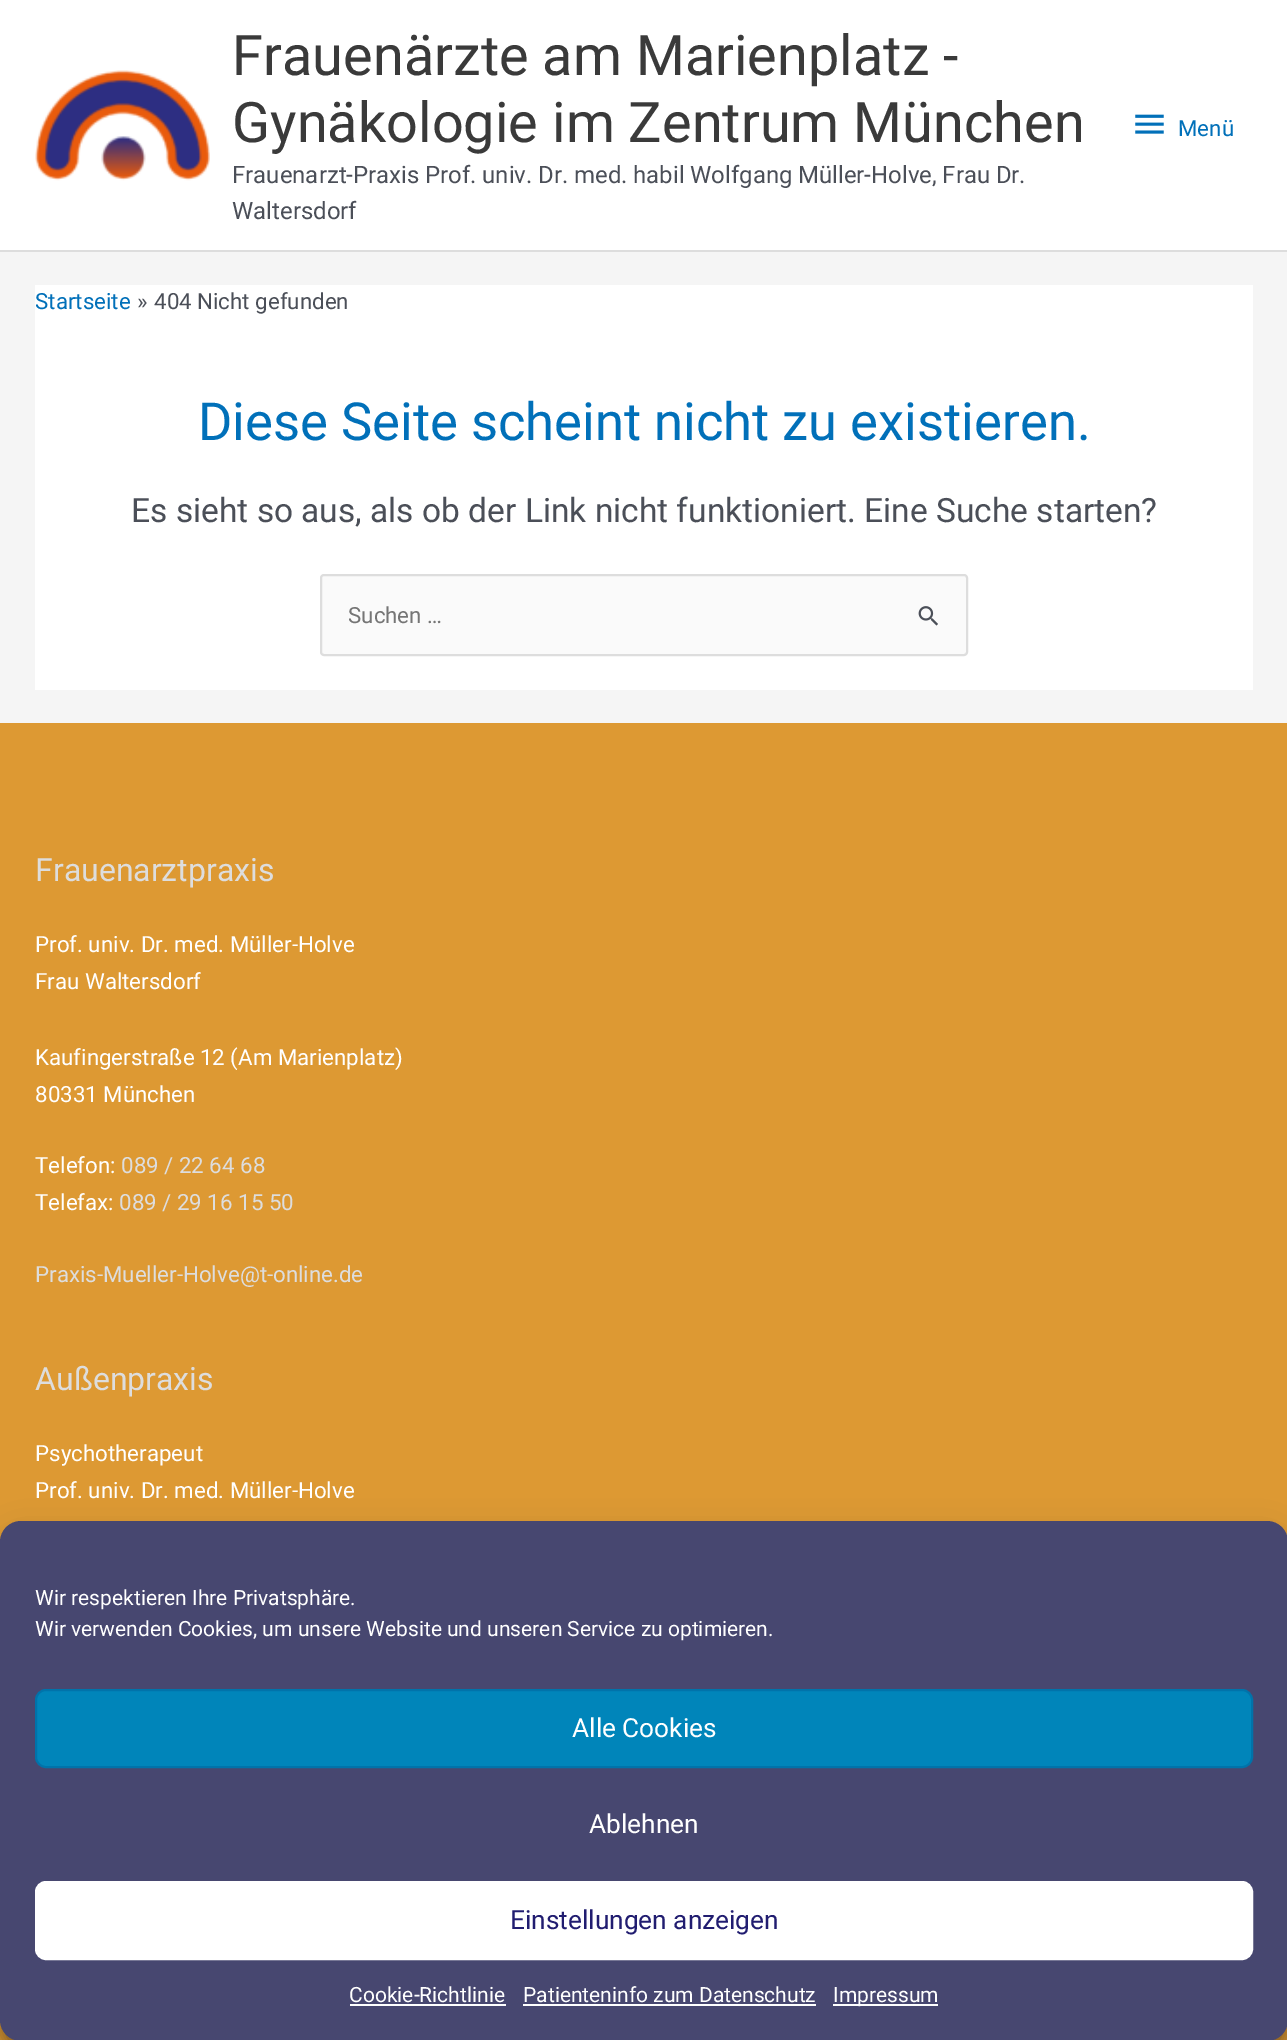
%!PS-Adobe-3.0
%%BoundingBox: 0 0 1287 2040
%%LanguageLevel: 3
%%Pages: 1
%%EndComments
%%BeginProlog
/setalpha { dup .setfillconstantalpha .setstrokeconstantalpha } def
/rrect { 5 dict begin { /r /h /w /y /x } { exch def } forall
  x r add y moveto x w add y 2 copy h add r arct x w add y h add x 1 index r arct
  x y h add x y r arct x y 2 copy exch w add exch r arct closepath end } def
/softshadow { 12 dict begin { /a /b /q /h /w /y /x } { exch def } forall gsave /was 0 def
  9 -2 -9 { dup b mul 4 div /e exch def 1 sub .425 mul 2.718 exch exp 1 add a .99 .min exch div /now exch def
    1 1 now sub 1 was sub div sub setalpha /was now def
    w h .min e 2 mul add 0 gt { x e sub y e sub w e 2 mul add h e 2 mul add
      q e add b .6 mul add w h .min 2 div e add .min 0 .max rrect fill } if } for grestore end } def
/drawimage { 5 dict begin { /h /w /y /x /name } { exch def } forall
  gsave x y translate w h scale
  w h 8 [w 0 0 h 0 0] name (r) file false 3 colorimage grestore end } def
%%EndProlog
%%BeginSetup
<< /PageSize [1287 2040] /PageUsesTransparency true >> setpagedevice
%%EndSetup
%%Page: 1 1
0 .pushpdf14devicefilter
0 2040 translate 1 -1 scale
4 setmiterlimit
0.961 setgray
0 0 1287 2040 rectfill
1 setgray
0 0 1287 250 rectfill
0.867 setgray
0 250 1287 2 rectfill
(images/1.raw) 35 70 175 111 drawimage
(images/2.raw) 1135 114 29 20 drawimage
1 setgray
35 285 1218 405 rectfill
0.98 setgray
321 575 646 80 3 rrect gsave fill grestore
0.867 setgray
2 setlinewidth
stroke
(images/3.raw) 918 606 20 20 drawimage
0.867 0.6 0.2 setrgbcolor
0 723 1287 1317 rectfill
0 setgray
0 1531 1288 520 21 5 0.23 softshadow
0 1538 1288 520 21 17.5 0.19 softshadow
0.278 0.278 0.439 setrgbcolor
0 1521 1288 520 21 rrect fill
0 0.522 0.729 setrgbcolor
36 1690 1216 77 10 rrect gsave fill grestore
0 0.451 0.667 setrgbcolor
stroke
1 setgray
36 1882 1216 77 10 rrect gsave fill grestore
stroke
350 2004 156 2 rectfill
523 2004 293 2 rectfill
833 2004 105 2 rectfill
/Roboto-Regular [55.9 0 0 -55.9 0 0] selectfont
0.227 setgray
232 75 moveto (Frauenärzte am Marienplatz -) show
232 142 moveto (Gynäkologie im Zentrum München) show
/Roboto-Regular [23.95 0 0 -23.95 0 0] selectfont
0.294 0.31 0.345 setrgbcolor
232 183 moveto -0.25 0 32 (Frauenarzt-Praxis Prof. univ. Dr. med. habil Wolfgang Müller-Holve, Frau Dr.) widthshow
232 219 moveto (Waltersdorf) show
/Roboto-Regular [22.3 0 0 -22.3 0 0] selectfont
0.004 0.439 0.725 setrgbcolor
1178 136 moveto (Menü) show
35 309 moveto (Startseite) show
0.294 0.31 0.345 setrgbcolor
137 309 moveto (») show
154 309 moveto (404 Nicht gefunden) show
/Roboto-Regular [52.5 0 0 -52.5 0 0] selectfont
0.004 0.439 0.725 setrgbcolor
198 440 moveto (Diese Seite scheint nicht zu existieren.) show
/Roboto-Regular [33.5 0 0 -33.5 0 0] selectfont
0.294 0.31 0.345 setrgbcolor
131 522 moveto (Es sieht so aus, als ob der Link nicht funktioniert. Eine Suche starten?) show
/Roboto-Regular [22.3 0 0 -22.3 0 0] selectfont
0.459 setgray
348 623 moveto (Suchen …) show
/Roboto-Regular [32 0 0 -32 0 0] selectfont
0.867 setgray
35 881 moveto (Frauenarztpraxis) show
/Roboto-Regular [22.3 0 0 -22.3 0 0] selectfont
1 setgray
35 952 moveto (Prof. univ. Dr. med. Müller-Holve) show
35 989 moveto (Frau Waltersdorf) show
35 1065 moveto (Kaufingerstraße 12 \(Am Marienplatz\)) show
35 1102 moveto (80331 München) show
35 1173 moveto (Telefon:) show
0.867 setgray
121 1173 moveto (089 / 22 64 68) show
1 setgray
35 1210 moveto (Telefax:) show
0.867 setgray
119 1210 moveto (089 / 29 16 15 50) show
35 1282 moveto (Praxis-Mueller-Holve@t-online.de) show
/Roboto-Regular [32 0 0 -32 0 0] selectfont
35 1390 moveto (Außenpraxis) show
/Roboto-Regular [22.3 0 0 -22.3 0 0] selectfont
1 setgray
35 1461 moveto (Psychotherapeut) show
35 1498 moveto (Prof. univ. Dr. med. Müller-Holve) show
/Roboto-Regular [21 0 0 -21 0 0] selectfont
35 1605 moveto (Wir respektieren Ihre Privatsphäre.) show
35 1636 moveto (Wir verwenden Cookies, um unsere Website und unseren Service zu optimieren.) show
/Roboto-Regular [26.25 0 0 -26.25 0 0] selectfont
572 1737 moveto (Alle Cookies) show
589 1833 moveto (Ablehnen) show
0.129 0.114 0.439 setrgbcolor
510 1929 moveto (Einstellungen anzeigen) show
/Roboto-Regular [21 0 0 -21 0 0] selectfont
1 setgray
349 2002 moveto (Cookie-Richtlinie) show
523 2002 moveto (Patienteninfo zum Datenschutz) show
833 2002 moveto (Impressum) show
.poppdf14devicefilter showpage
%%EOF
